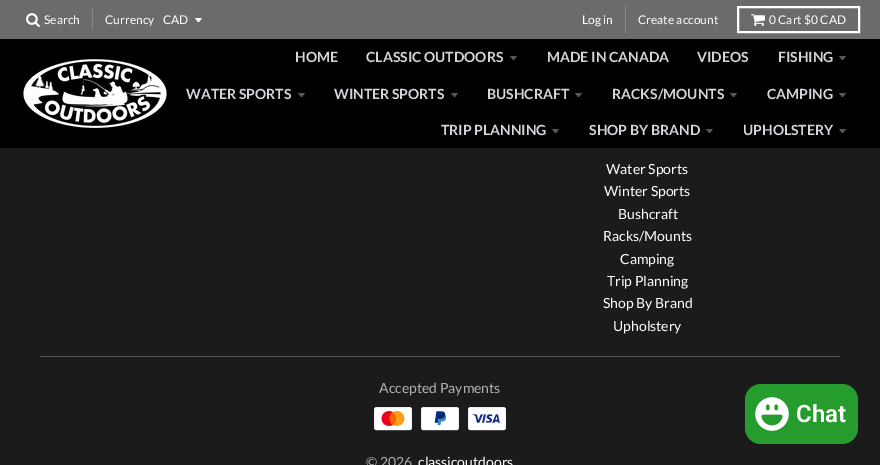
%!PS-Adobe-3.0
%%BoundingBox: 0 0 880 465
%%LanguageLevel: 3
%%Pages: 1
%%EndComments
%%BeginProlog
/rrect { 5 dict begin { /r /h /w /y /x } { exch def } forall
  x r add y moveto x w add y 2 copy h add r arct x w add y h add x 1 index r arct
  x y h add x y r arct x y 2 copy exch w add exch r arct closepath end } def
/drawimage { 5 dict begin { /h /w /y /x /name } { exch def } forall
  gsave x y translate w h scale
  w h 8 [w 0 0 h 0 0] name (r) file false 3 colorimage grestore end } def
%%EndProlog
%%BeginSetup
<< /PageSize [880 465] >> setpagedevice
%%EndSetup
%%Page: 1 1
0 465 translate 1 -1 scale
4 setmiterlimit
0.106 setgray
0 0 880 465 rectfill
0.42 setgray
0 0 880 39 rectfill
(images/1.raw) 26 13 14 14 drawimage
0.533 setgray
92 9 1 21 rectfill
1 setgray
newpath 195 18 moveto 199.5 23.5 197.5 23.5 202 18 curveto closepath fill
0.533 setgray
625 6 1 27 rectfill
1 setgray
2 setlinewidth
738 7 121 25 rectstroke
(images/2.raw) 751 14 14 12 drawimage
0 setgray
0 39 880 109 rectfill
(images/3.raw) 23 59 144 69 drawimage
0.337 0.333 0.341 setrgbcolor
newpath 510 56 moveto 514.5 61.5 512.5 61.5 517 56 curveto closepath fill
newpath 839 56 moveto 843.5 61.5 841.5 61.5 846 56 curveto closepath fill
newpath 298 93 moveto 302.5 98.5 300.5 98.5 305 93 curveto closepath fill
newpath 451 93 moveto 455.5 98.5 453.5 98.5 458 93 curveto closepath fill
newpath 575 93 moveto 579.5 98.5 577.5 98.5 582 93 curveto closepath fill
newpath 730 93 moveto 734.5 98.5 732.5 98.5 737 93 curveto closepath fill
newpath 839 93 moveto 843.5 98.5 841.5 98.5 846 93 curveto closepath fill
newpath 552 129 moveto 556.5 134.5 554.5 134.5 559 129 curveto closepath fill
newpath 706 129 moveto 710.5 134.5 708.5 134.5 713 129 curveto closepath fill
newpath 839 129 moveto 843.5 134.5 841.5 134.5 846 129 curveto closepath fill
0.325 0.322 0.329 setrgbcolor
40 356 800 1 rectfill
(images/4.raw) 374 407 38 24 drawimage
(images/5.raw) 421 407 38 24 drawimage
(images/6.raw) 468 407 38 24 drawimage
0.153 0.612 0.18 setrgbcolor
745 384 113 60 16 rrect fill
(images/7.raw) 755 397 34 34 drawimage
/Lato-Regular [12 0 0 -12 0 0] selectfont
1 setgray
44 24 moveto (Search) show
105 24 moveto (Currency) show
163 24 moveto (CAD) show
582 24 moveto (Log in) show
638 24 moveto (Create account) show
769 24 moveto (0 Cart $0 CAD) show
/Lato-Bold [14 0 0 -14 0 0] selectfont
0.839 0.831 0.855 setrgbcolor
295 62 moveto (HOME) show
366 62 moveto (CLASSIC OUTDOORS) show
547 62 moveto (MADE IN CANADA) show
697 62 moveto (VIDEOS) show
778 62 moveto (FISHING) show
186 99 moveto (WATER SPORTS) show
334 99 moveto (WINTER SPORTS) show
487 99 moveto (BUSHCRAFT) show
612 99 moveto (RACKS/MOUNTS) show
767 99 moveto (CAMPING) show
441 135 moveto (TRIP PLANNING) show
589 135 moveto (SHOP BY BRAND) show
743 135 moveto (UPHOLSTERY) show
/Lato-Regular [14 0 0 -14 0 0] selectfont
1 setgray
606 174 moveto (Water Sports) show
604 196 moveto (Winter Sports) show
618 219 moveto (Bushcraft) show
603 241 moveto (Racks/Mounts) show
620 264 moveto (Camping) show
607 286 moveto (Trip Planning) show
603 308 moveto (Shop By Brand) show
613 331 moveto (Upholstery) show
0.69 0.686 0.702 setrgbcolor
379 393 moveto (Accepted Payments) show
366 467 moveto (© 2026) show
1 setgray
418 467 moveto (classicoutdoors) show
/Roboto-SemiBold [24 0 0 -24 0 0] selectfont
796 422 moveto (Chat) show
showpage
%%EOF
